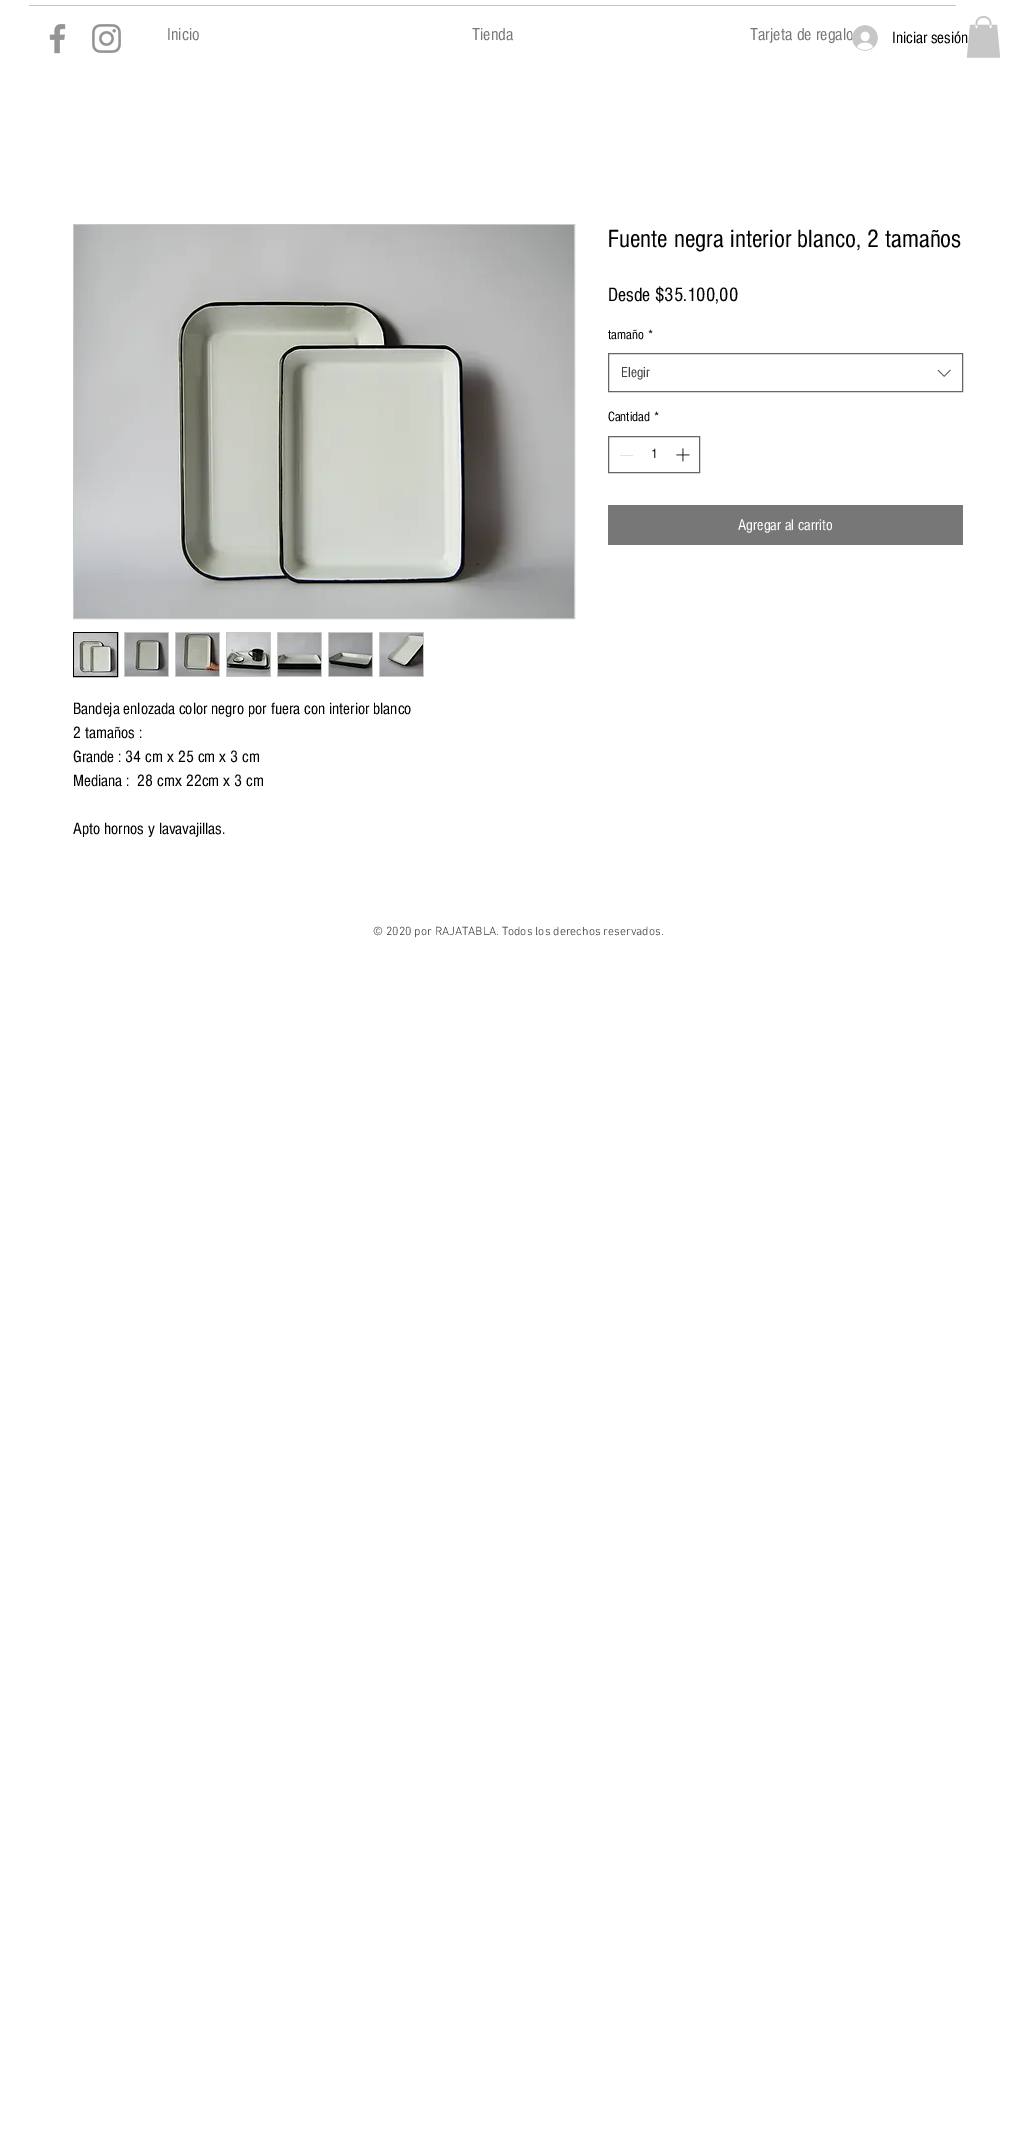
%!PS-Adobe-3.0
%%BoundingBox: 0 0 1036 2141
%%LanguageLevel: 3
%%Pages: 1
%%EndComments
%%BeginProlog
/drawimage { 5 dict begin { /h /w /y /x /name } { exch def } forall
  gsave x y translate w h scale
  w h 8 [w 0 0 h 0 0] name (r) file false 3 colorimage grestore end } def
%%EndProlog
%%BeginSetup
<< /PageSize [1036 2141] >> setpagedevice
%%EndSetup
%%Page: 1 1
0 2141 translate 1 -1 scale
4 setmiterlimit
1 setgray
0 0 1036 2141 rectfill
(images/1.raw) 49 24 17 30 drawimage
(images/2.raw) 92 24 29 29 drawimage
0.78 setgray
29 5 927 1 rectfill
0.4 setgray
608.5 353.5 354 38 rectstroke
(images/5.raw) 937 369 14 8 drawimage
608.5 436.5 91 36 rectstroke
0.89 setgray
620 455 13 1 rectfill
(images/6.raw) 676 448 14 14 drawimage
0.467 setgray
608 505 355 40 rectfill
0.78 setgray
73.5 224.5 501 394 rectstroke
(images/7.raw) 74 225 500 393 drawimage
0 setgray
73.5 632.5 44 44 rectstroke
(images/8.raw) 74 633 43 43 drawimage
0.78 setgray
124 632 45 45 rectfill
(images/9.raw) 125 633 43 43 drawimage
175 632 45 45 rectfill
(images/10.raw) 176 633 43 43 drawimage
226 632 45 45 rectfill
(images/11.raw) 227 633 43 43 drawimage
277 632 45 45 rectfill
(images/12.raw) 278 633 43 43 drawimage
328 632 45 45 rectfill
(images/13.raw) 329 633 43 43 drawimage
379 632 45 45 rectfill
(images/14.raw) 380 633 43 43 drawimage
/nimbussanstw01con-Regular [18 0 0 -18 0 0] selectfont
0.467 setgray
167 40 moveto (Inicio) show
472 40 moveto (Tienda) show
750 40 moveto (Tarjeta de regalo) show
(images/3.raw) 852 25 26 26 drawimage
/nimbussanstw01con-Regular [17 0 0 -17 0 0] selectfont
0 setgray
892 43 moveto (Iniciar sesión) show
(images/4.raw) 966 16 35 42 drawimage
/nimbussanstw01con-Regular [26 0 0 -26 0 0] selectfont
608 247 moveto (Fuente negra interior blanco, 2 tamaños) show
/nimbussanstw01con-Regular [20 0 0 -20 0 0] selectfont
608 301 moveto (Desde $35.100,00) show
/nimbussanstw01con-Regular [14 0 0 -14 0 0] selectfont
608 339 moveto (tamaño) show
648 339 moveto (*) show
/nimbussanstw01con-Regular [15 0 0 -15 0 0] selectfont
0.267 setgray
621 377 moveto (Elegir) show
/nimbussanstw01con-Regular [14 0 0 -14 0 0] selectfont
0 setgray
608 421 moveto (Cantidad) show
654 421 moveto (*) show
651 458 moveto (1) show
/nimbussanstw01con-Regular [16 0 0 -16 0 0] selectfont
1 setgray
738 530 moveto (Agregar al carrito) show
/nimbussanstw01con-Regular [17 0 0 -17 0 0] selectfont
0 setgray
73 714 moveto (Bandeja enlozada color negro por fuera con interior blanco) show
73 738 moveto (2 tamaños :) show
73 762 moveto (Grande : 34 cm x 25 cm x 3 cm) show
73 786 moveto (Mediana :  28 cmx 22cm x 3 cm) show
73 834 moveto (Apto hornos y lavavajillas.) show
/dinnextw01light-Light [12 0 0 -12 0 0] selectfont
0.2 setgray
373 935 moveto (© 2020 por RAJATABLA. Todos los derechos reservados.) show
showpage
%%EOF
